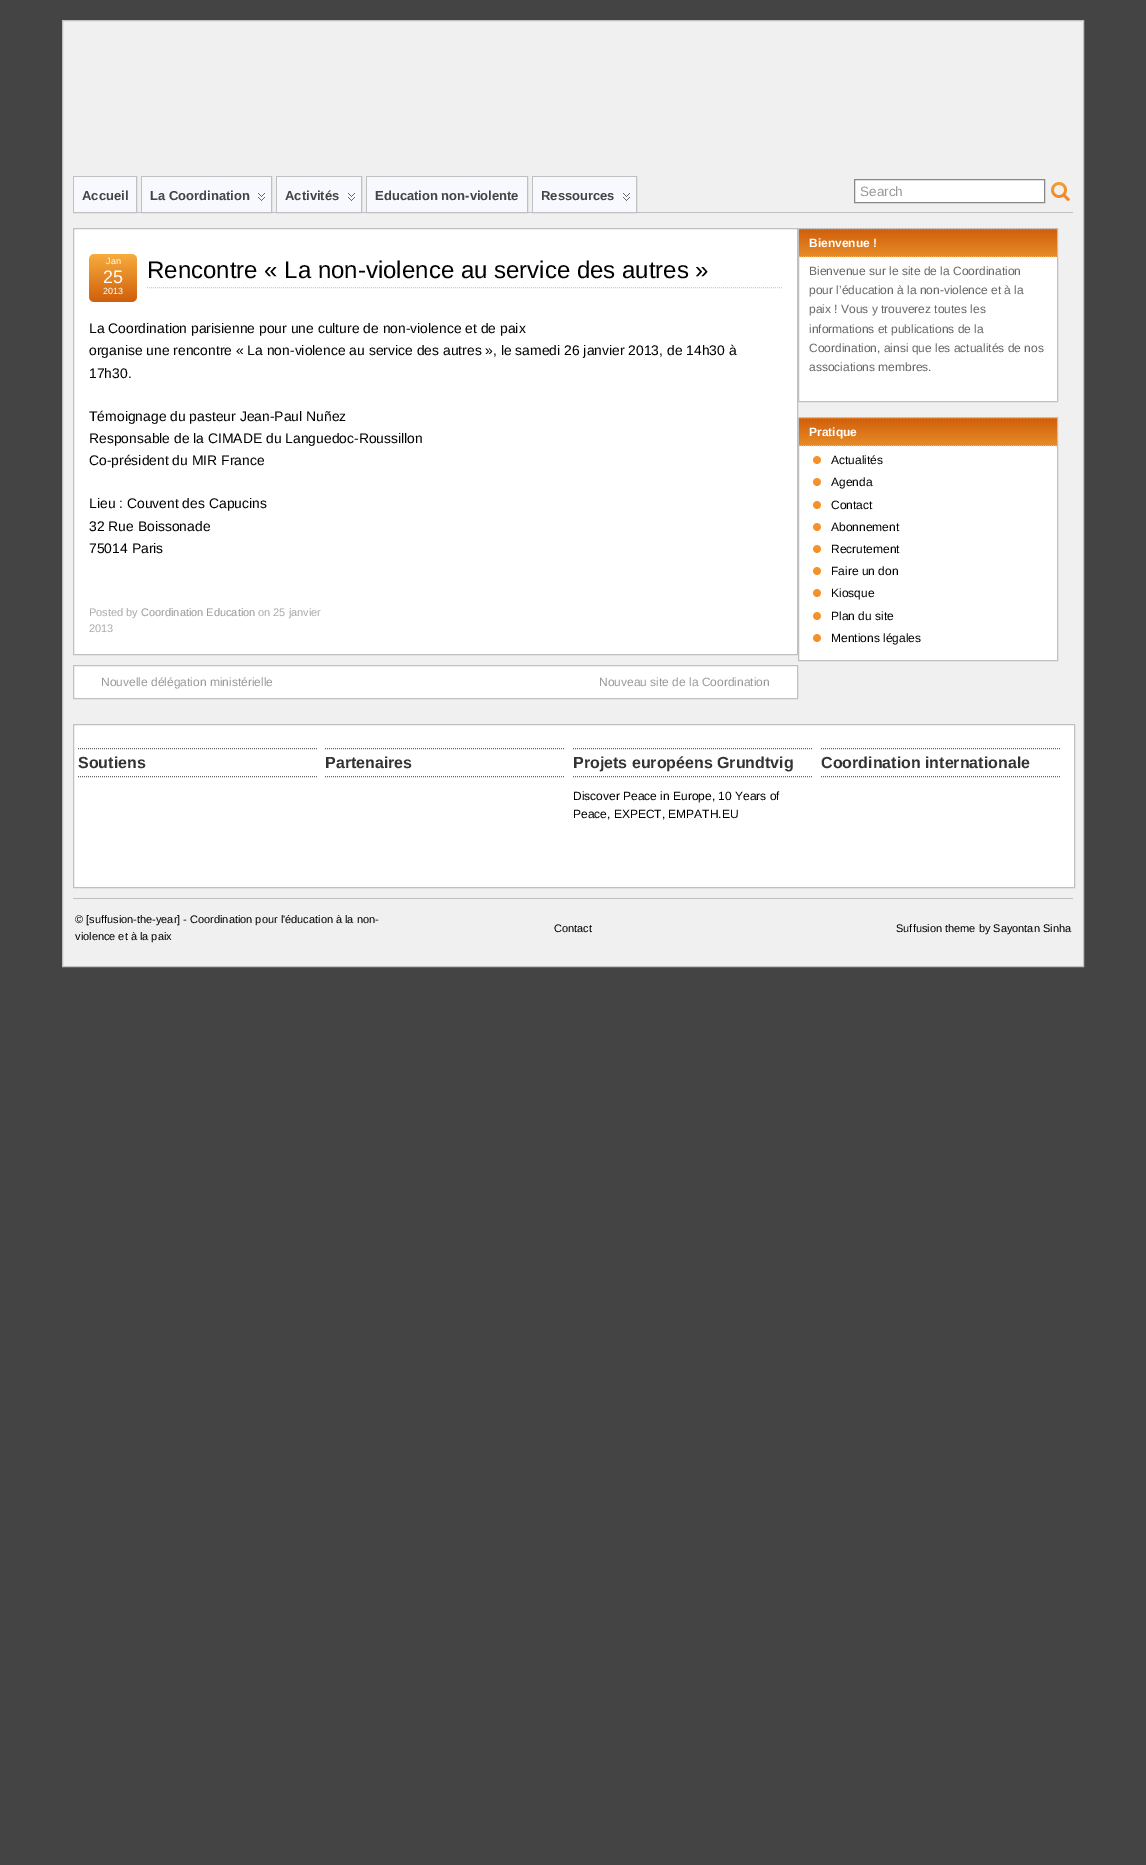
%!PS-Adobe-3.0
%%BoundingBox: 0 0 1146 1865
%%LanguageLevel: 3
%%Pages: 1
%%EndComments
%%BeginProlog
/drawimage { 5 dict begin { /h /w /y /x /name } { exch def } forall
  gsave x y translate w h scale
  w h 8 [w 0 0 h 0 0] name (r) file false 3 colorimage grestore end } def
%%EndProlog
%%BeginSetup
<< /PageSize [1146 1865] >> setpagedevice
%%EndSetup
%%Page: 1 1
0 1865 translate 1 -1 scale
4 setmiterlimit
0.267 setgray
0 0 1146 1865 rectfill
0.941 setgray
newpath 62.5 20.5 moveto 1083.5 20.5 lineto 1083.5 966.5 lineto 62.5 966.5 lineto closepath gsave fill grestore
0.753 setgray
stroke
137 212 936 1 rectfill
73.5 176.5 63 36 rectstroke
0.973 0.973 1 setrgbcolor
74 177 62 35 rectfill
0.753 setgray
141.5 176.5 130 36 rectstroke
0.973 0.973 1 setrgbcolor
142 177 129 35 rectfill
(images/1.raw) 258 193 7 8 drawimage
0.753 setgray
276.5 176.5 85 36 rectstroke
0.973 0.973 1 setrgbcolor
277 177 84 35 rectfill
(images/1.raw) 348 193 7 8 drawimage
0.753 setgray
366.5 176.5 161 36 rectstroke
0.973 0.973 1 setrgbcolor
367 177 160 35 rectfill
0.753 setgray
532.5 176.5 104 36 rectstroke
0.973 0.973 1 setrgbcolor
533 177 103 35 rectfill
(images/1.raw) 623 193 7 8 drawimage
1 setgray
newpath 854.5 179.5 moveto 1044.5 179.5 lineto 1044.5 202.5 lineto 854.5 202.5 lineto closepath gsave fill grestore
0.533 setgray
stroke
(images/2.raw) 1051 182 20 19 drawimage
1 setgray
newpath 73.5 228.5 moveto 797.5 228.5 lineto 797.5 654.5 lineto 73.5 654.5 lineto closepath gsave fill grestore
0.753 setgray
stroke
(images/3.raw) 89 254 48 48 drawimage
0.8 setgray
[1 1] 0 setdash
newpath 147 287.5 moveto 782 287.5 lineto stroke
1 setgray
newpath 73.5 665.5 moveto 797.5 665.5 lineto 797.5 698.5 lineto 73.5 698.5 lineto closepath gsave fill grestore
0.753 setgray
[] 0 setdash
stroke
1 setgray
799 257 258 144 rectfill
0.753 setgray
798.5 228.5 259 173 rectstroke
0.965 0.675 0.239 setrgbcolor
799 229 258 1 rectfill
(images/4.raw) 799 229 258 28 drawimage
0.753 setgray
[1 1] 0 setdash
newpath 799 256.5 moveto 1057 256.5 lineto stroke
1 setgray
799 446 258 214 rectfill
0.753 setgray
[] 0 setdash
798.5 417.5 259 243 rectstroke
0.965 0.675 0.239 setrgbcolor
799 418 258 1 rectfill
(images/4.raw) 799 418 258 28 drawimage
0.753 setgray
[1 1] 0 setdash
newpath 799 445.5 moveto 1057 445.5 lineto stroke
(images/5.raw) 813 456 8 8 drawimage
(images/5.raw) 813 478 8 8 drawimage
(images/5.raw) 813 501 8 8 drawimage
(images/5.raw) 813 523 8 8 drawimage
(images/5.raw) 813 545 8 8 drawimage
(images/5.raw) 813 567 8 8 drawimage
(images/5.raw) 813 589 8 8 drawimage
(images/5.raw) 813 612 8 8 drawimage
(images/5.raw) 813 634 8 8 drawimage
1 setgray
newpath 73.5 724.5 moveto 1074.5 724.5 lineto 1074.5 887.5 lineto 73.5 887.5 lineto closepath gsave fill grestore
0.753 setgray
[] 0 setdash
stroke
0.4 setgray
[1 1] 0 setdash
newpath 78 748.5 moveto 318 748.5 lineto stroke
newpath 78 776.5 moveto 318 776.5 lineto stroke
newpath 325 748.5 moveto 565 748.5 lineto stroke
newpath 325 776.5 moveto 565 776.5 lineto stroke
newpath 573 748.5 moveto 813 748.5 lineto stroke
newpath 573 776.5 moveto 813 776.5 lineto stroke
newpath 821 748.5 moveto 1061 748.5 lineto stroke
newpath 821 776.5 moveto 1061 776.5 lineto stroke
0.753 setgray
73 898 1000 1 rectfill
/LiberationSans-Bold [13 0 0 -13 0 0] selectfont
0.267 setgray
82 200 moveto (Accueil) show
150 200 moveto (La Coordination) show
285 200 moveto (Activités) show
375 200 moveto (Education non-violente) show
541 200 moveto (Ressources) show
/LiberationSans-Regular [13.5 0 0 -13.5 0 0] selectfont
0.6 setgray
860 196 moveto (Search) show
/LiberationSans-Regular [9 0 0 -9 0 0] selectfont
1 setgray
106 264 moveto (Jan) show
/LiberationSans-Regular [18 0 0 -18 0 0] selectfont
103 283 moveto (25) show
/LiberationSans-Regular [9 0 0 -9 0 0] selectfont
103 294 moveto (2013) show
/LiberationSans-Regular [24 0 0 -24 0 0] selectfont
0 setgray
147 278 moveto (Rencontre « La non-violence au service des autres ») show
/LiberationSans-Regular [13.9 0 0 -13.9 0 0] selectfont
89 333 moveto (La Coordination parisienne pour une culture de non-violence et de paix) show
89 355 moveto (organise une rencontre « La non-violence au service des autres », le samedi 26 janvier 2013, de 14h30 à) show
89 378 moveto (17h30.) show
89 421 moveto (Témoignage du pasteur Jean-Paul Nuñez) show
89 443 moveto (Responsable de la CIMADE du Languedoc-Roussillon) show
89 465 moveto (Co-président du MIR France) show
89 508 moveto (Lieu : Couvent des Capucins) show
89 531 moveto (32 Rue Boissonade) show
89 553 moveto (75014 Paris) show
/LiberationSans-Regular [11 0 0 -11 0 0] selectfont
0.667 setgray
89 616 moveto (Posted by) show
0.6 setgray
141 616 moveto (Coordination Education) show
0.667 setgray
258 616 moveto (on 25 janvier) show
89 632 moveto (2013) show
/LiberationSans-Regular [12 0 0 -12 0 0] selectfont
0.6 setgray
101 686 moveto (Nouvelle délégation ministérielle) show
599 686 moveto (Nouveau site de la Coordination) show
/LiberationSans-Bold [12 0 0 -12 0 0] selectfont
1 setgray
809 247 moveto (Bienvenue !) show
/LiberationSans-Regular [12 0 0 -12 0 0] selectfont
0.4 setgray
809 275 moveto (Bienvenue sur le site de la Coordination) show
809 294 moveto (pour l’éducation à la non-violence et à la) show
809 313 moveto (paix ! Vous y trouverez toutes les) show
809 333 moveto (informations et publications de la) show
809 352 moveto (Coordination, ainsi que les actualités de nos) show
809 371 moveto (associations membres.) show
/LiberationSans-Bold [12 0 0 -12 0 0] selectfont
1 setgray
809 436 moveto (Pratique) show
/LiberationSans-Regular [12 0 0 -12 0 0] selectfont
0 setgray
831 464 moveto (Actualités) show
831 486 moveto (Agenda) show
831 509 moveto (Contact) show
831 531 moveto (Abonnement) show
831 553 moveto (Recrutement) show
831 575 moveto (Faire un don) show
831 597 moveto (Kiosque) show
831 620 moveto (Plan du site) show
831 642 moveto (Mentions légales) show
/LiberationSans-Bold [16 0 0 -16 0 0] selectfont
0.2 setgray
78 768 moveto (Soutiens) show
325 768 moveto (Partenaires) show
573 768 moveto (Projets européens Grundtvig) show
/LiberationSans-Regular [12 0 0 -12 0 0] selectfont
0 setgray
573 800 moveto (Discover Peace in Europe, 10 Years of) show
573 818 moveto (Peace, EXPECT, EMPATH.EU) show
/LiberationSans-Bold [16 0 0 -16 0 0] selectfont
0.2 setgray
821 768 moveto (Coordination internationale) show
/LiberationSans-Regular [11 0 0 -11 0 0] selectfont
0 setgray
75 923 moveto (© [suffusion-the-year] - Coordination pour l'éducation à la non-) show
75 940 moveto (violence et à la paix) show
554 932 moveto (Contact) show
896 932 moveto (Suffusion theme by Sayontan Sinha) show
showpage
%%EOF
